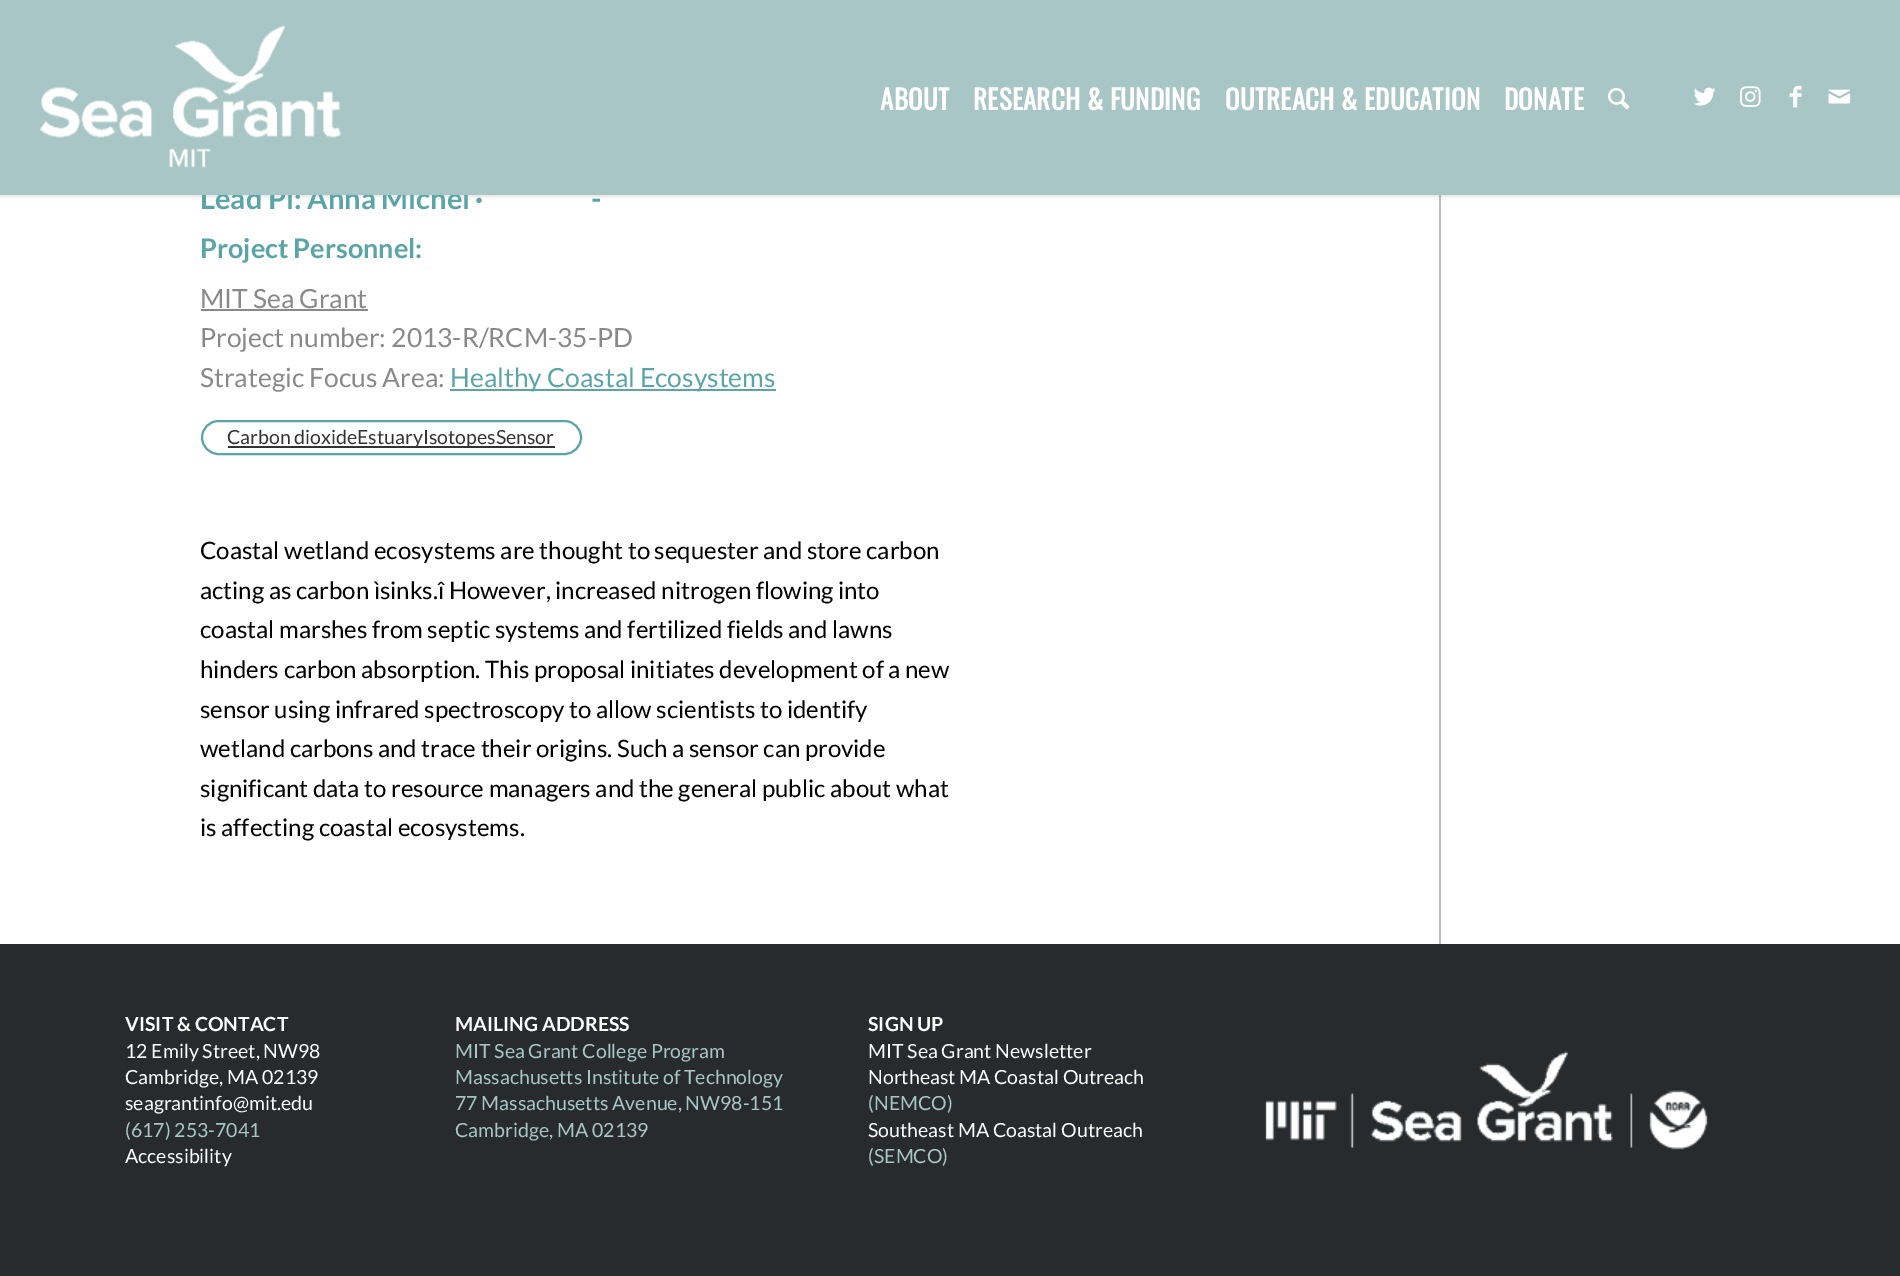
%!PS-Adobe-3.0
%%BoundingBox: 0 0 1900 1276
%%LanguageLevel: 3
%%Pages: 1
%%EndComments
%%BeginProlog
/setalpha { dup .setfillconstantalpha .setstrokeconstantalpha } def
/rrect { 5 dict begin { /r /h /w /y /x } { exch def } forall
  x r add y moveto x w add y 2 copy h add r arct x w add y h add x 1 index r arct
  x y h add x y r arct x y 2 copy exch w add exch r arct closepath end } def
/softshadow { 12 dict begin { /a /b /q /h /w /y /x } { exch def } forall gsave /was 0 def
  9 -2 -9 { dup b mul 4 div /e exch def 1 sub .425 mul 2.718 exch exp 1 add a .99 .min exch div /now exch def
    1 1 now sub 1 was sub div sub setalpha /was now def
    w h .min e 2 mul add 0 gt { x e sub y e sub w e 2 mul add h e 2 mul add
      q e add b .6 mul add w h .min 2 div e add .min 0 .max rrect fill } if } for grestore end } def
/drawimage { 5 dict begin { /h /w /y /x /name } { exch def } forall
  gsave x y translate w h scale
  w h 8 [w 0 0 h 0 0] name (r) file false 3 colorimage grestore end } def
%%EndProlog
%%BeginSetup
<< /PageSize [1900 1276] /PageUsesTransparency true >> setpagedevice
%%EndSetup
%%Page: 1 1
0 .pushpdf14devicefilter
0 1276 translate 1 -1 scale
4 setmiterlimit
1 setgray
0 0 1900 1276 rectfill
0.749 setgray
1439 195 2 750 rectfill
0 setgray
-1 -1 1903 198 0 1.5 0.1 softshadow
0.537 setgray
201 309 167 2 rectfill
0.349 0.647 0.659 setrgbcolor
450 389 326 2 rectfill
0.353 0.647 0.659 setrgbcolor
2 setlinewidth
202 421 379 33 16.5 rrect stroke
0.2 setgray
228 446 327 2 rectfill
0.157 0.169 0.18 setrgbcolor
0 944 1900 332 rectfill
(images/7.raw) 1265 1051 443 99 drawimage
/Lato-Bold [29 0 0 -29 0 0] selectfont
0.353 0.647 0.659 setrgbcolor
200 209 moveto (Lead Pi: Anna Michel ·) show
0.659 0.776 0.773 setrgbcolor
0 0 1900 195 rectfill
(images/6.raw) 1828 89 23 15 drawimage
(images/5.raw) 1789 85 13 23 drawimage
(images/4.raw) 1740 86 21 21 drawimage
(images/3.raw) 1693 87 23 19 drawimage
(images/2.raw) 1608 87 22 23 drawimage
/Oswald-Bold [27 0 0 -27 0 0] selectfont
1 setgray
1504 110 moveto 0.25 0 (DONATE) ashow
1225 110 moveto 0.25 0 (OUTREACH & EDUCATION) ashow
973 110 moveto 0.25 0 (RESEARCH & FUNDING) ashow
880 110 moveto 0.25 0 (ABOUT) ashow
(images/1.raw) 39 25 302 143 drawimage
/Lato-Bold [29 0 0 -29 0 0] selectfont
0.353 0.647 0.659 setrgbcolor
591 209 moveto (-) show
/Lato-Bold [27 0 0 -27 0 0] selectfont
200 258 moveto (Project Personnel:) show
/Lato-Regular [26.4 0 0 -26.4 0 0] selectfont
0.537 setgray
200 308 moveto (MIT Sea Grant) show
200 347 moveto (Project number: 2013-R/RCM-35-PD) show
200 387 moveto (Strategic Focus Area:) show
0.353 0.647 0.659 setrgbcolor
450 387 moveto (Healthy Coastal Ecosystems) show
/Lato-Regular [19.5 0 0 -19.5 0 0] selectfont
0.2 setgray
227 444 moveto (Carbon dioxideEstuaryIsotopesSensor) show
/Lato-Regular [24 0 0 -24 0 0] selectfont
0 setgray
200 559 moveto (Coastal wetland ecosystems are thought to sequester and store carbon) show
200 599 moveto (acting as carbon ìsinks.î However, increased nitrogen flowing into) show
200 638 moveto (coastal marshes from septic systems and fertilized fields and lawns) show
200 678 moveto (hinders carbon absorption. This proposal initiates development of a new) show
200 718 moveto (sensor using infrared spectroscopy to allow scientists to identify) show
200 757 moveto (wetland carbons and trace their origins. Such a sensor can provide) show
200 797 moveto (significant data to resource managers and the general public about what) show
200 836 moveto (is affecting coastal ecosystems.) show
/Lato-Bold [19.5 0 0 -19.5 0 0] selectfont
1 setgray
125 1031 moveto (VISIT & CONTACT) show
/Lato-Regular [19.5 0 0 -19.5 0 0] selectfont
125 1058 moveto (12 Emily Street, NW98) show
125 1084 moveto (Cambridge, MA 02139) show
125 1110 moveto (seagrantinfo@mit.edu) show
0.659 0.776 0.773 setrgbcolor
125 1137 moveto (\(617\) 253-7041) show
1 setgray
125 1163 moveto (Accessibility) show
/Lato-Bold [19.5 0 0 -19.5 0 0] selectfont
455 1031 moveto (MAILING ADDRESS) show
/Lato-Regular [19.5 0 0 -19.5 0 0] selectfont
0.659 0.776 0.773 setrgbcolor
455 1058 moveto (MIT Sea Grant College Program) show
455 1084 moveto (Massachusetts Institute of Technology) show
455 1110 moveto (77 Massachusetts Avenue, NW98-151) show
455 1137 moveto (Cambridge, MA 02139) show
/Lato-Bold [19.5 0 0 -19.5 0 0] selectfont
1 setgray
868 1031 moveto (SIGN UP) show
/Lato-Regular [19.5 0 0 -19.5 0 0] selectfont
868 1058 moveto (MIT Sea Grant Newsletter) show
868 1084 moveto (Northeast MA Coastal Outreach) show
0.659 0.776 0.773 setrgbcolor
868 1110 moveto (\(NEMCO\)) show
1 setgray
868 1137 moveto (Southeast MA Coastal Outreach) show
0.659 0.776 0.773 setrgbcolor
868 1163 moveto (\(SEMCO\)) show
.poppdf14devicefilter showpage
%%EOF
